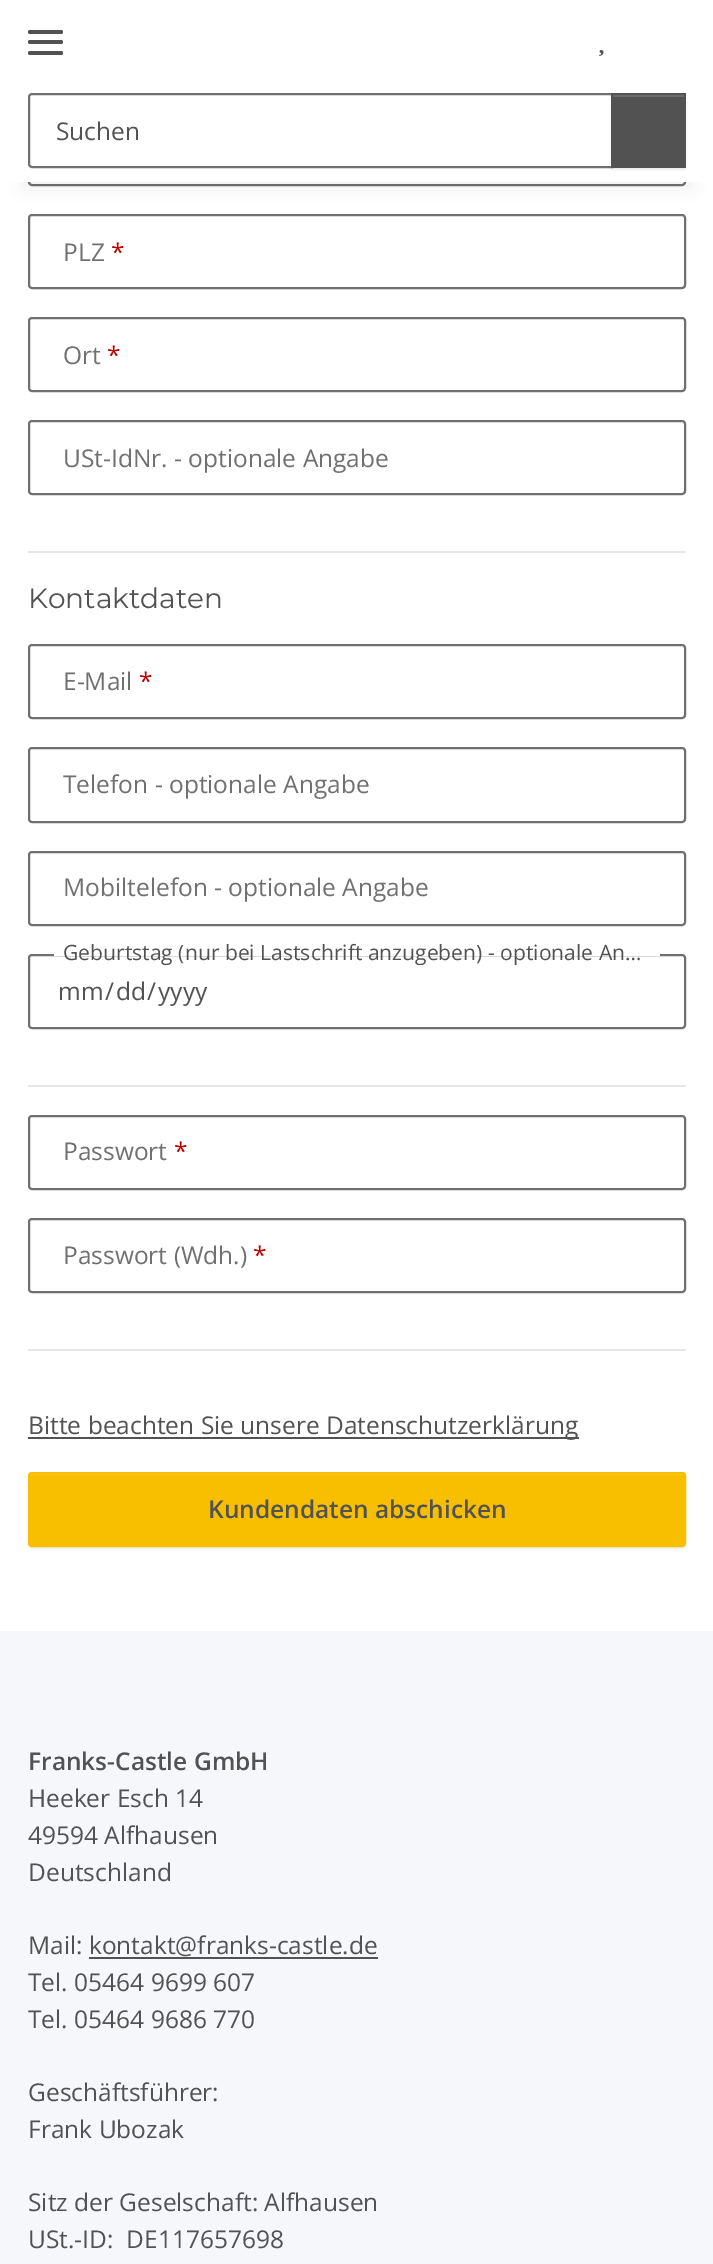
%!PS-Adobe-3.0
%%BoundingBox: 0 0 713 2264
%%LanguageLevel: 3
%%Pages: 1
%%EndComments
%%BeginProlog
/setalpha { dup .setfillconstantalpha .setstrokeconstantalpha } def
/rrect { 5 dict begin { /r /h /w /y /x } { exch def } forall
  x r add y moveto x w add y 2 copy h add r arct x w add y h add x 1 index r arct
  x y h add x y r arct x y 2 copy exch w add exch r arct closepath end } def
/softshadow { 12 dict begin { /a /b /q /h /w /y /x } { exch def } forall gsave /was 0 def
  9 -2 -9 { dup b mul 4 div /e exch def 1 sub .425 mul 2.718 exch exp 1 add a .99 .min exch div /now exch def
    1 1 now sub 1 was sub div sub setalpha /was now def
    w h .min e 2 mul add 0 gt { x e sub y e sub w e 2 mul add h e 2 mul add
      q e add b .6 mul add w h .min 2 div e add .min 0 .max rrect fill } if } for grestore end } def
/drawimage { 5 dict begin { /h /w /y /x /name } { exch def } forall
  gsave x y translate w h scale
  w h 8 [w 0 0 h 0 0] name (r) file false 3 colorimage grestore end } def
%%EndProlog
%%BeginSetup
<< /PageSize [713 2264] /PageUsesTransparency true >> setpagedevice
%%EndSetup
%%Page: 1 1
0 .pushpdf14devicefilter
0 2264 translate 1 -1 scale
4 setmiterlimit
0.961 0.969 0.98 setrgbcolor
0 0 713 2264 rectfill
1 setgray
0 182 713 1449 rectfill
0.439 setgray
2 setlinewidth
29 111 656 74 3 rrect stroke
0 setgray
21 49 672 140 0 8 0.06 softshadow
1 setgray
0 0 713 182 rectfill
0.322 setgray
28 40 35 4 2 rrect fill
28 30 35 4 2 rrect fill
28 51 35 4 2 rrect fill
(images/1.raw) 599 50 5 7 drawimage
0.439 setgray
newpath 32 94 moveto 612 94 lineto 612 167 lineto 32 167 lineto 30.5 167 29 165.5 29 164 curveto 29 97 lineto 29 95.5 30.5 94 32 94 curveto closepath stroke
0 setgray
611 95 75 75 0 1 0.07 softshadow
0.322 setgray
611 93 75 75 rectfill
0.424 setgray
613 95 71 2 rectfill
0.439 setgray
29 215 656 73 3 rrect stroke
29 318 656 73 3 rrect stroke
29 421 656 73 3 rrect stroke
0.902 setgray
28 551 658 2 rectfill
0.439 setgray
29 645 656 73 3 rrect stroke
29 748 656 74 3 rrect stroke
29 852 656 73 3 rrect stroke
29 955 656 73 3 rrect stroke
1 setgray
54 954 606 2 rectfill
0.902 setgray
28 1085 658 2 rectfill
0.439 setgray
29 1116 656 73 3 rrect stroke
29 1219 656 73 3 rrect stroke
0.902 setgray
28 1349 658 2 rectfill
0.322 setgray
28 1437 551 2 rectfill
0 setgray
28 1474 658 75 4 1 0.07 softshadow
0.973 0.749 0 setrgbcolor
28 1472 658 75 4 rrect fill
0.976 0.788 0.149 setrgbcolor
newpath 32 1475 moveto 682 1475 lineto 683 1475 684 1476 684 1477 curveto 684 1476 684 1474 682 1474 curveto 32 1474 lineto 30 1474 30 1476 30 1477 curveto 30 1476 31 1475 32 1475 curveto closepath fill
0.973 0.749 0 setrgbcolor
29 1473 656 73 3 rrect stroke
0.322 setgray
89 1957 289 2 rectfill
/OpenSans-Regular [24.5 0 0 -24.5 0 0] selectfont
56 140 moveto (Suchen) show
0.439 setgray
63 261 moveto (PLZ) show
0.725 0 0 setrgbcolor
111 261 moveto (*) show
0.439 setgray
63 364 moveto (Ort) show
0.725 0 0 setrgbcolor
107 364 moveto (*) show
0.439 setgray
63 467 moveto (USt-IdNr. - optionale Angabe) show
/Montserrat-Regular [28 0 0 -28 0 0] selectfont
0.322 setgray
28 608 moveto (Kontaktdaten) show
/OpenSans-Regular [24.5 0 0 -24.5 0 0] selectfont
0.439 setgray
63 690 moveto (E-Mail) show
0.725 0 0 setrgbcolor
139 690 moveto (*) show
0.439 setgray
63 793 moveto (Telefon - optionale Angabe) show
63 896 moveto (Mobiltelefon - optionale Angabe) show
/OpenSans-Regular [21.1 0 0 -21.1 0 0] selectfont
0.322 setgray
63 960 moveto (Geburtstag \(nur bei Lastschrift anzugeben\) - optionale An…) show
/OpenSans-Regular [24.5 0 0 -24.5 0 0] selectfont
58 1000 moveto (mm) show
105 1000 moveto (/) show
116 1000 moveto (dd) show
147 1000 moveto (/) show
158 1000 moveto (yyyy) show
0.439 setgray
63 1160 moveto (Passwort) show
0.725 0 0 setrgbcolor
174 1160 moveto (*) show
0.439 setgray
63 1264 moveto (Passwort \(Wdh.\)) show
0.725 0 0 setrgbcolor
253 1264 moveto (*) show
0.322 setgray
28 1434 moveto (Bitte beachten Sie unsere Datenschutzerklärung) show
/OpenSans-SemiBold [24.5 0 0 -24.5 0 0] selectfont
208 1518 moveto (Kundendaten abschicken) show
28 1770 moveto (Franks-Castle GmbH) show
/OpenSans-Regular [24.5 0 0 -24.5 0 0] selectfont
28 1807 moveto (Heeker Esch 14) show
28 1844 moveto (49594 Alfhausen) show
28 1881 moveto (Deutschland) show
28 1954 moveto (Mail: kontakt@franks-castle.de) show
28 1991 moveto (Tel. 05464 9699 607) show
28 2028 moveto (Tel. 05464 9686 770) show
28 2101 moveto (Geschäftsführer:) show
28 2138 moveto (Frank Ubozak) show
28 2211 moveto (Sitz der Geselschaft: Alfhausen) show
28 2248 moveto (USt.-ID:  DE117657698) show
.poppdf14devicefilter showpage
%%EOF
